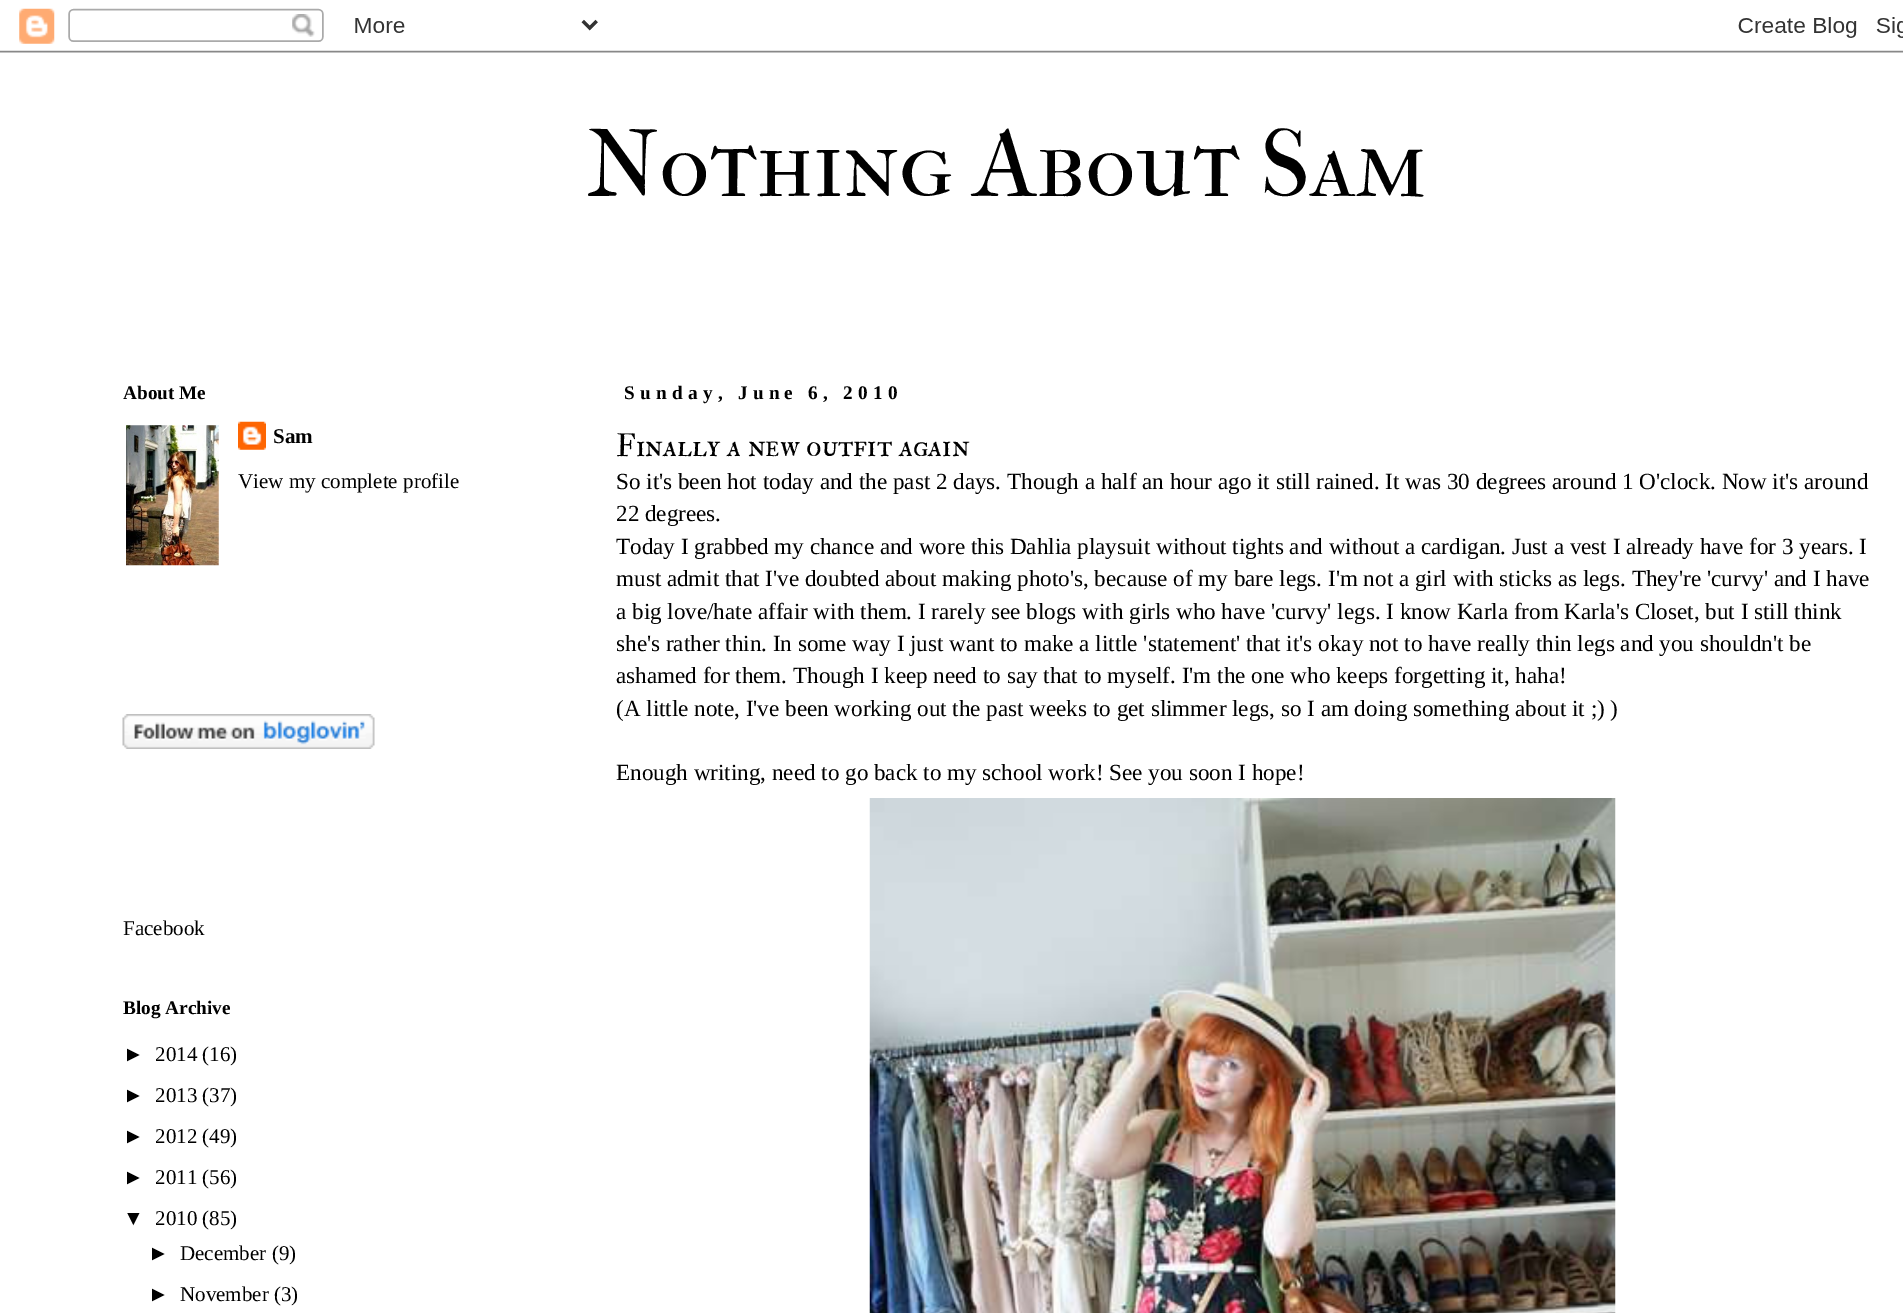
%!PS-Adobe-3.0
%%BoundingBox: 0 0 1903 1313
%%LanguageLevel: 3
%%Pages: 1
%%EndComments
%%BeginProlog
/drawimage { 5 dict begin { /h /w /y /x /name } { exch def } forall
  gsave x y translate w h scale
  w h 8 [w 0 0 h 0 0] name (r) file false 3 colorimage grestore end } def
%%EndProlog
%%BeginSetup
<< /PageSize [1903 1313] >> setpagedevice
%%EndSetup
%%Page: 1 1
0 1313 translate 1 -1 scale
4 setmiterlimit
1 setgray
0 0 1903 1313 rectfill
(images/1.raw) 0 8 1903 45 drawimage
(images/2.raw) 126 425 93 141 drawimage
(images/3.raw) 238 421 28 29 drawimage
(images/4.raw) 122 714 253 35 drawimage
(images/5.raw) 869 798 747 515 drawimage
/IMFELLFrenchCanonSC-Regular [96.25 0 0 -96.25 0 0] selectfont
0 setgray
586 196 moveto (Nothing About Sam) show
/LiberationSerif-Bold [19.25 0 0 -19.25 0 0] selectfont
123 399 moveto (About Me) show
/LiberationSerif-Bold [21 0 0 -21 0 0] selectfont
273 443 moveto (Sam) show
/LiberationSerif-Regular [21 0 0 -21 0 0] selectfont
238 488 moveto (View my complete profile) show
123 935 moveto (Facebook) show
/LiberationSerif-Bold [19.25 0 0 -19.25 0 0] selectfont
123 1014 moveto (Blog Archive) show
/LiberationSans-Regular [21 0 0 -21 0 0] selectfont
123 1061 moveto (►) show
/LiberationSerif-Regular [21 0 0 -21 0 0] selectfont
155 1061 moveto (2014 \(16\)) show
/LiberationSans-Regular [21 0 0 -21 0 0] selectfont
123 1102 moveto (►) show
/LiberationSerif-Regular [21 0 0 -21 0 0] selectfont
155 1102 moveto (2013 \(37\)) show
/LiberationSans-Regular [21 0 0 -21 0 0] selectfont
123 1143 moveto (►) show
/LiberationSerif-Regular [21 0 0 -21 0 0] selectfont
155 1143 moveto (2012 \(49\)) show
/LiberationSans-Regular [21 0 0 -21 0 0] selectfont
123 1184 moveto (►) show
/LiberationSerif-Regular [21 0 0 -21 0 0] selectfont
155 1184 moveto (2011 \(56\)) show
/LiberationSans-Regular [21 0 0 -21 0 0] selectfont
123 1225 moveto (▼) show
/LiberationSerif-Regular [21 0 0 -21 0 0] selectfont
155 1225 moveto (2010 \(85\)) show
/LiberationSans-Regular [21 0 0 -21 0 0] selectfont
148 1260 moveto (►) show
/LiberationSerif-Regular [21 0 0 -21 0 0] selectfont
180 1260 moveto (December \(9\)) show
/LiberationSans-Regular [21 0 0 -21 0 0] selectfont
148 1301 moveto (►) show
/LiberationSerif-Regular [21 0 0 -21 0 0] selectfont
180 1301 moveto (November \(3\)) show
/LiberationSerif-Bold [19.25 0 0 -19.25 0 0] selectfont
624 399 moveto 5.25 0 (Sunday, June 6, 2010) ashow
/IMFELLDoublePicaSC-Regular [31.5 0 0 -31.5 0 0] selectfont
616 456 moveto (Finally a new outfit again) show
/LiberationSerif-Regular [23.1 0 0 -23.1 0 0] selectfont
616 489 moveto (So it's been hot today and the past 2 days. Though a half an hour ago it still rained. It was 30 degrees around 1 O'clock. Now it's around) show
616 521 moveto (22 degrees.) show
616 554 moveto (Today I grabbed my chance and wore this Dahlia playsuit without tights and without a cardigan. Just a vest I already have for 3 years. I) show
616 586 moveto (must admit that I've doubted about making photo's, because of my bare legs. I'm not a girl with sticks as legs. They're 'curvy' and I have) show
616 619 moveto (a big love/hate affair with them. I rarely see blogs with girls who have 'curvy' legs. I know Karla from Karla's Closet, but I still think) show
616 651 moveto (she's rather thin. In some way I just want to make a little 'statement' that it's okay not to have really thin legs and you shouldn't be) show
616 683 moveto (ashamed for them. Though I keep need to say that to myself. I'm the one who keeps forgetting it, haha!) show
616 716 moveto (\(A little note, I've been working out the past weeks to get slimmer legs, so I am doing something about it ;\) \)) show
616 780 moveto (Enough writing, need to go back to my school work! See you soon I hope!) show
showpage
%%EOF
